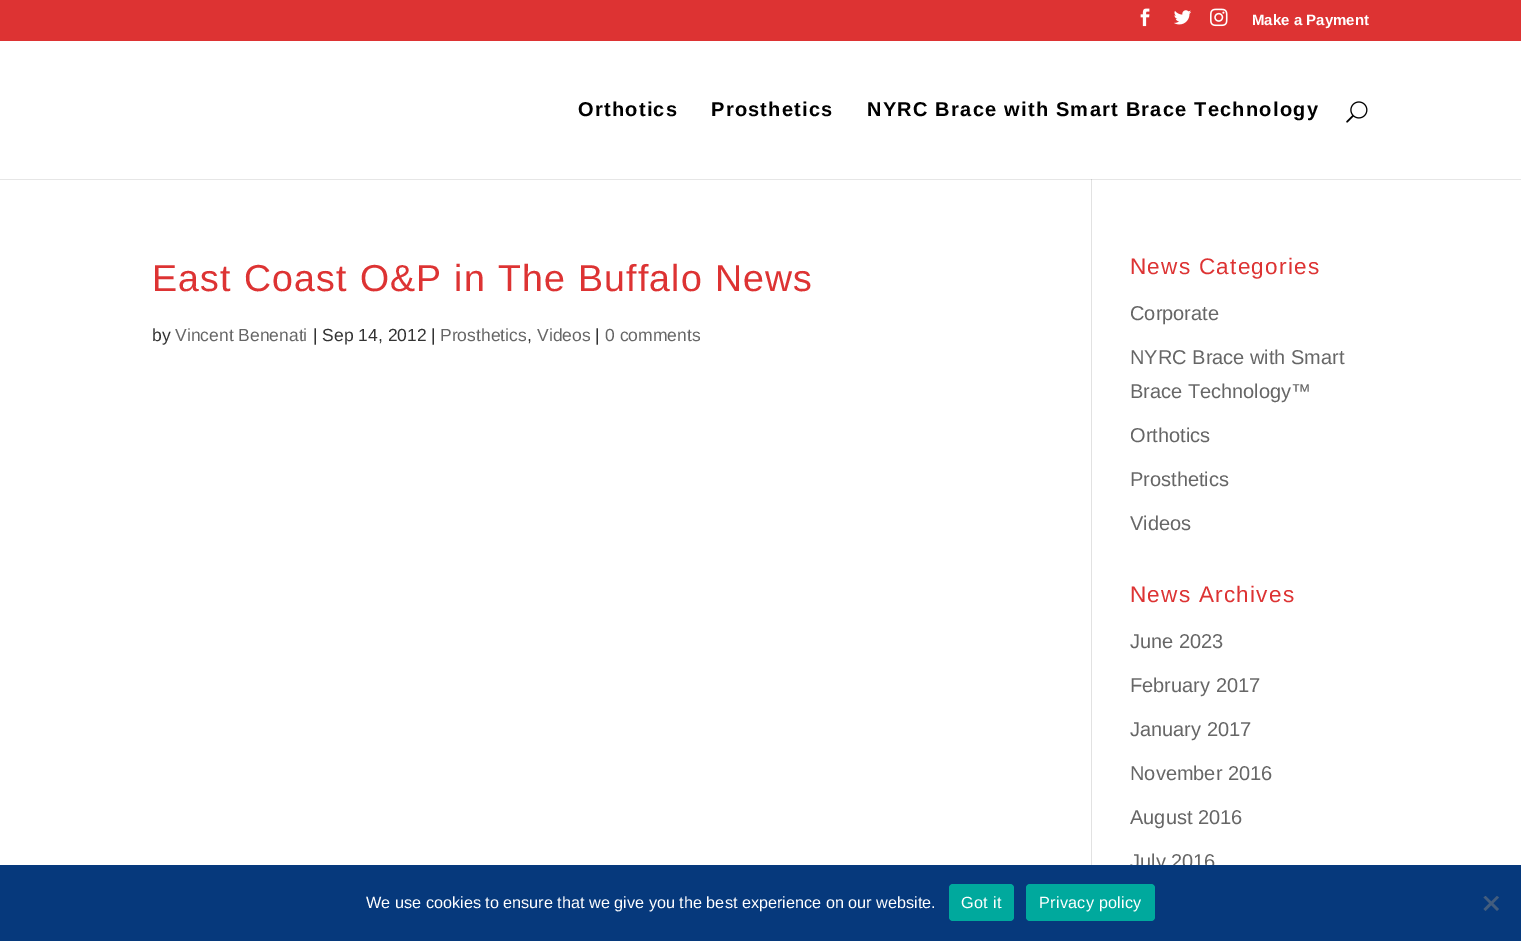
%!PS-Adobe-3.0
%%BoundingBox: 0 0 1521 941
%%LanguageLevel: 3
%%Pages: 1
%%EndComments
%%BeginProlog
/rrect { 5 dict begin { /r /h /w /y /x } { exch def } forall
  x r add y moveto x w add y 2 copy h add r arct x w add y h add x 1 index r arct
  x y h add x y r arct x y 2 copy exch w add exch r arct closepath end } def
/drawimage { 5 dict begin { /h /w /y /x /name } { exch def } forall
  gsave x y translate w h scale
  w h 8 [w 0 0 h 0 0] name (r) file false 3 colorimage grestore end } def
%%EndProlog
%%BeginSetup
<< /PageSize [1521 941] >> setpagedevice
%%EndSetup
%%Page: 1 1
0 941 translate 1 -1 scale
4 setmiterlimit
1 setgray
0 0 1521 941 rectfill
0.902 setgray
0 179 1521 1 rectfill
0.867 0.2 0.2 setrgbcolor
0 0 1521 41 rectfill
(images/1.raw) 1140 8 10 19 drawimage
(images/2.raw) 1174 10 17 15 drawimage
(images/3.raw) 1210 8 18 19 drawimage
0.886 setgray
1091 178 1 687 rectfill
1 setgray
1091 178 1 1 rectfill
(images/4.raw) 1346 101 22 22 drawimage
0.796 setgray
1091 179 1 1 rectfill
/LiberationSans-Bold [15 0 0 -15 0 0] selectfont
1 setgray
1252 25 moveto (Make a Payment) show
/LiberationSans-Bold [20 0 0 -20 0 0] selectfont
0 setgray
578 116 moveto 1.25 0 (Orthotics) ashow
711 116 moveto 1.25 0 (Prosthetics) ashow
867 116 moveto 1.25 0 (NYRC Brace with Smart Brace Technology) ashow
/LiberationSans-Regular [37.5 0 0 -37.5 0 0] selectfont
0.867 0.2 0.2 setrgbcolor
152 291 moveto 1.25 0 (East Coast O&P in The Buffalo News) ashow
/LiberationSans-Regular [17.5 0 0 -17.5 0 0] selectfont
0.2 setgray
152 341 moveto (by) show
0.4 setgray
175 341 moveto (Vincent Benenati) show
0.2 setgray
313 341 moveto (| Sep 14, 2012 |) show
0.4 setgray
440 341 moveto (Prosthetics) show
0.2 setgray
527 341 moveto (,) show
0.4 setgray
537 341 moveto (Videos) show
0.2 setgray
595 341 moveto (|) show
0.4 setgray
605 341 moveto (0 comments) show
/LiberationSans-Regular [22.5 0 0 -22.5 0 0] selectfont
0.867 0.2 0.2 setrgbcolor
1130 274 moveto 1.25 0 (News Categories) ashow
/LiberationSans-Regular [20 0 0 -20 0 0] selectfont
0.4 setgray
1130 320 moveto (Corporate) show
1130 364 moveto (NYRC Brace with Smart) show
1130 398 moveto (Brace Technology™) show
1130 442 moveto (Orthotics) show
1130 486 moveto (Prosthetics) show
1130 530 moveto (Videos) show
/LiberationSans-Regular [22.5 0 0 -22.5 0 0] selectfont
0.867 0.2 0.2 setrgbcolor
1130 602 moveto 1.25 0 (News Archives) ashow
/LiberationSans-Regular [20 0 0 -20 0 0] selectfont
0.4 setgray
1130 648 moveto (June 2023) show
1130 692 moveto (February 2017) show
1130 736 moveto (January 2017) show
1130 780 moveto (November 2016) show
1130 824 moveto (August 2016) show
1130 868 moveto (July 2016) show
0.024 0.224 0.486 setrgbcolor
0 865 1521 76 rectfill
/LiberationSans-Regular [16.25 0 0 -16.25 0 0] selectfont
1 setgray
366 908 moveto (We use cookies to ensure that we give you the best experience on our website.) show
0 0.663 0.616 setrgbcolor
949 884 65 37 4 rrect fill
1 setgray
961 908 moveto 0.25 0 (Got it) ashow
0 0.663 0.616 setrgbcolor
1026 884 129 37 4 rrect fill
1 setgray
1039 908 moveto 0.25 0 (Privacy policy) ashow
0.263 0.365 0.494 setrgbcolor
newpath 1497 896 moveto 1499 897.5 lineto 1485.5 911 lineto 1483.5 909 lineto closepath fill
newpath 1483.5 897.5 moveto 1485.5 896 lineto 1499 909 lineto 1497 911 lineto closepath fill
showpage
%%EOF
